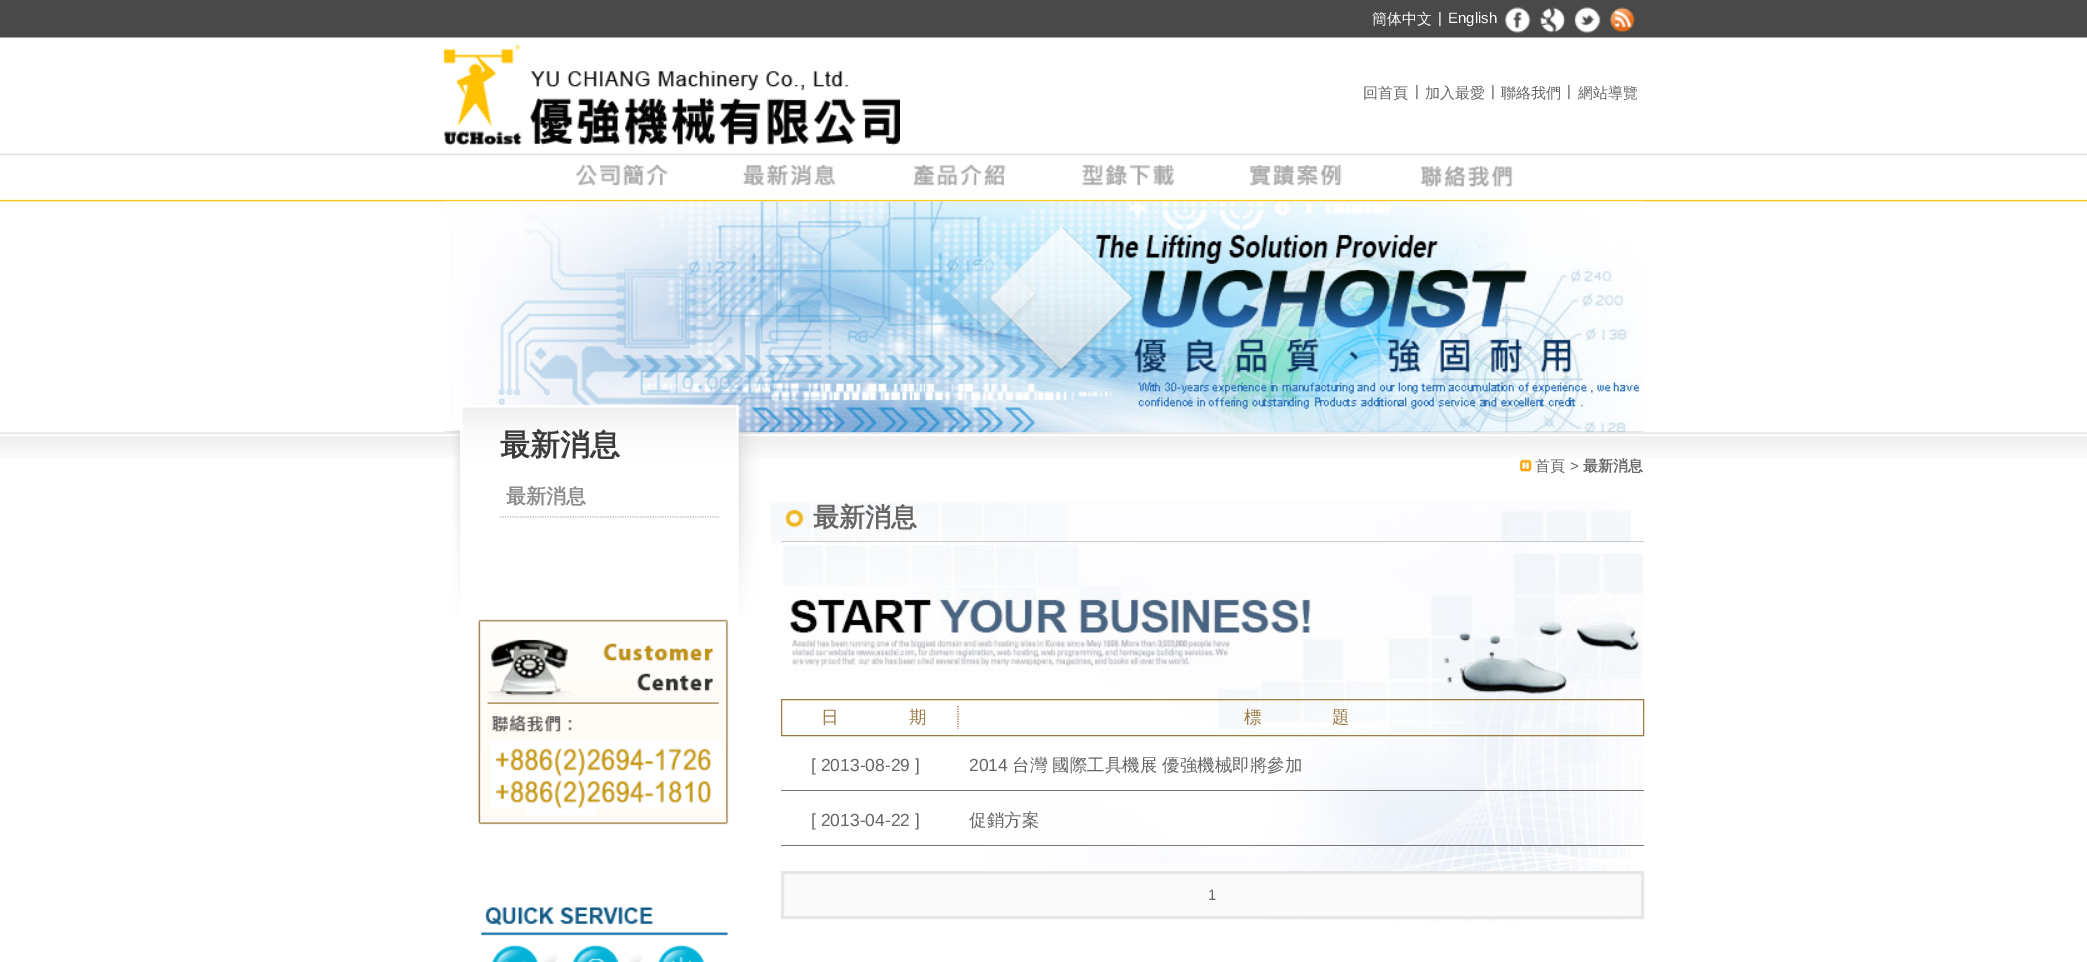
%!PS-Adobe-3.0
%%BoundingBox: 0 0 2087 962
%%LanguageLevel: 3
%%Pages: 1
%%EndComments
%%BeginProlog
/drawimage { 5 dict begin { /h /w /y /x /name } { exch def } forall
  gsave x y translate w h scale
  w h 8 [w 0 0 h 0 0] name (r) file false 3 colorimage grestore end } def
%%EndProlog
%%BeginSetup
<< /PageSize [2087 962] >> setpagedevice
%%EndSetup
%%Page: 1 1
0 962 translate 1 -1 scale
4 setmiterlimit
1 setgray
0 0 2087 962 rectfill
(images/1.raw) 0 0 2087 457 drawimage
(images/2.raw) 1504 7 27 26 drawimage
(images/3.raw) 1540 7 26 26 drawimage
(images/4.raw) 1574 7 27 26 drawimage
(images/5.raw) 1609 7 27 26 drawimage
(images/6.raw) 443 45 457 100 drawimage
(images/7.raw) 576 164 92 22 drawimage
(images/8.raw) 743 164 93 22 drawimage
(images/9.raw) 913 164 93 22 drawimage
(images/10.raw) 1082 164 92 22 drawimage
(images/11.raw) 1250 164 92 22 drawimage
(images/12.raw) 1420 166 93 22 drawimage
(images/13.raw) 444 201 1200 232 drawimage
(images/14.raw) 451 404 309 213 drawimage
0.733 setgray
1.2 setlinewidth
[1.25 1.25] 0 setdash
newpath 500 517 moveto 719 517 lineto stroke
(images/15.raw) 477 619 252 206 drawimage
(images/16.raw) 481 907 247 29 drawimage
(images/17.raw) 543 954 101 8 drawimage
(images/18.raw) 492 945 46 17 drawimage
(images/19.raw) 573 945 46 17 drawimage
(images/20.raw) 658 945 46 17 drawimage
(images/21.raw) 770 500 861 421 drawimage
(images/22.raw) 1519 459 13 13 drawimage
(images/23.raw) 785 509 19 19 drawimage
0.8 setgray
781 541 863 1 rectfill
(images/24.raw) 783 542 861 305 drawimage
0.608 0.486 0.263 setrgbcolor
1 setlinewidth
[] 0 setdash
781.5 699.5 862 36 rectstroke
1.2 setlinewidth
[1.25 1.25] 0 setdash
newpath 958 706 moveto 958 729 lineto stroke
0.467 setgray
781 790 863 1 rectfill
781 845 863 1 rectfill
0.98 setgray
newpath 782.5 872.5 moveto 1642.5 872.5 lineto 1642.5 917.5 lineto 782.5 917.5 lineto closepath gsave fill grestore
0.902 setgray
3 setlinewidth
[] 0 setdash
stroke
/WenQuanYiZenHei-Medium [15 0 0 -15 0 0] selectfont
1 setgray
1372 24 moveto (簡体中文) show
/LiberationSans-Regular [15 0 0 -15 0 0] selectfont
1438 23 moveto (|) show
1448 23 moveto (English) show
/WenQuanYiZenHei-Medium [15 0 0 -15 0 0] selectfont
0.4 setgray
1363 98 moveto (回首頁) show
/LiberationSans-Regular [15 0 0 -15 0 0] selectfont
1415 96 moveto (|) show
/WenQuanYiZenHei-Medium [15 0 0 -15 0 0] selectfont
1425 98 moveto (加入最愛) show
/LiberationSans-Regular [15 0 0 -15 0 0] selectfont
1491 96 moveto (|) show
/WenQuanYiZenHei-Medium [15 0 0 -15 0 0] selectfont
1501 98 moveto (聯絡我們) show
/LiberationSans-Regular [15 0 0 -15 0 0] selectfont
1567 96 moveto (|) show
/WenQuanYiZenHei-Medium [15 0 0 -15 0 0] selectfont
1578 98 moveto (網站導覽) show
/WenQuanYiZenHei-Bold [30 0 0 -30 0 0] selectfont
0.231 setgray
500 455 moveto (最新消息) show
/WenQuanYiZenHei-Bold [20 0 0 -20 0 0] selectfont
0.553 setgray
506 503 moveto (最新消息) show
/WenQuanYiZenHei-Medium [15 0 0 -15 0 0] selectfont
0.4 setgray
1535 471 moveto (首頁) show
/LiberationSans-Regular [15 0 0 -15 0 0] selectfont
1570 471 moveto (>) show
/WenQuanYiZenHei-Bold [15 0 0 -15 0 0] selectfont
1583 471 moveto (最新消息) show
/WenQuanYiZenHei-Bold [26 0 0 -26 0 0] selectfont
813 526 moveto (最新消息) show
/WenQuanYiZenHei-Medium [17.5 0 0 -17.5 0 0] selectfont
0.608 0.486 0.263 setrgbcolor
821 723 moveto (日　　　　期) show
1244 723 moveto (標　　　　題) show
/LiberationSans-Regular [17.5 0 0 -17.5 0 0] selectfont
0.4 setgray
811 771 moveto ([ 2013-08-29 ]) show
969 771 moveto (2014) show
/WenQuanYiZenHei-Medium [17.5 0 0 -17.5 0 0] selectfont
1012 771 moveto (台灣 國際工具機展 優強機械即將參加) show
/LiberationSans-Regular [17.5 0 0 -17.5 0 0] selectfont
811 826 moveto ([ 2013-04-22 ]) show
/WenQuanYiZenHei-Medium [17.5 0 0 -17.5 0 0] selectfont
969 826 moveto (促銷方案) show
/LiberationSans-Regular [15 0 0 -15 0 0] selectfont
1208 900 moveto (1) show
showpage
%%EOF
